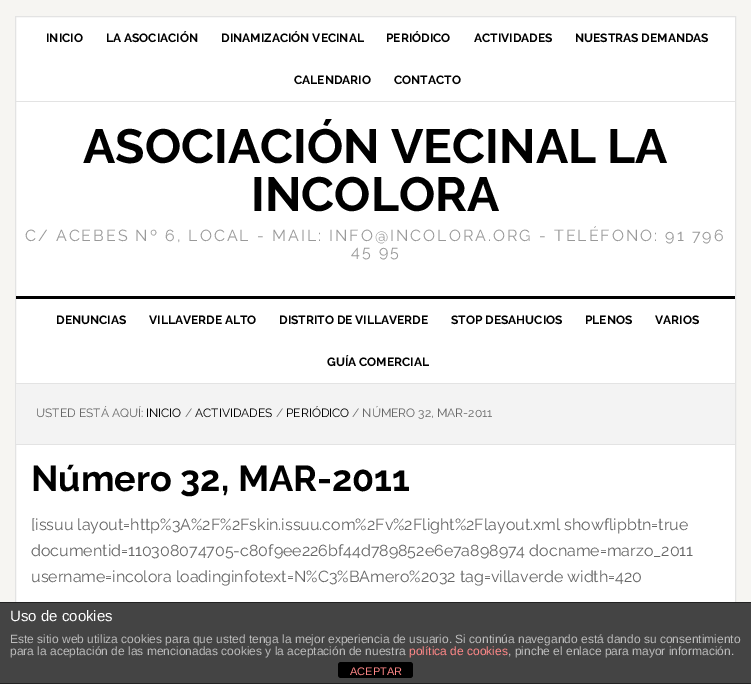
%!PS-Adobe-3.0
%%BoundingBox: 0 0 751 684
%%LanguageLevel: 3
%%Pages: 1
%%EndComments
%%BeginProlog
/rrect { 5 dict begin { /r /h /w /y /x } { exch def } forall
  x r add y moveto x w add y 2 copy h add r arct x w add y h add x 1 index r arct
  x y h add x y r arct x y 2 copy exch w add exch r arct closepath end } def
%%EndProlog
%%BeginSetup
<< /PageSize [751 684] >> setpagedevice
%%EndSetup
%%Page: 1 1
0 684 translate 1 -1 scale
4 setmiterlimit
0.965 0.961 0.949 setrgbcolor
0 0 751 684 rectfill
1 setgray
16 17 719 585 rectfill
0.89 setgray
15.5 16.5 720 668 rectstroke
16 101 719 1 rectfill
0 setgray
16 296 719 3 rectfill
0.89 setgray
16 383 719 1 rectfill
0.953 setgray
16 384 719 60 rectfill
0.89 setgray
16 444 719 1 rectfill
0.267 setgray
0 603 751 80 rectfill
0.133 setgray
0 602 751 1 rectfill
0 683 751 1 rectfill
0 setgray
338 662 75 16 3 rrect fill
/Raleway-Bold [12 0 0 -12 0 0] selectfont
46 42 moveto (INICIO) show
106 42 moveto (LA ASOCIACIÓN) show
221 42 moveto (DINAMIZACIÓN VECINAL) show
386 42 moveto (PERIÓDICO) show
474 42 moveto (ACTIVIDADES) show
575 42 moveto (NUESTRAS DEMANDAS) show
294 84 moveto (CALENDARIO) show
394 84 moveto (CONTACTO) show
/Raleway-Bold [48 0 0 -48 0 0] selectfont
83 163 moveto (ASOCIACIÓN VECINAL LA) show
251 211 moveto (INCOLORA) show
/Raleway-Regular [16 0 0 -16 0 0] selectfont
0.6 setgray
25 241 moveto 2 0 (C/ ACEBES Nº 6, LOCAL - MAIL: INFO@INCOLORA.ORG - TELÉFONO: 91 796) ashow
351 257 moveto 2 0 (45 95) ashow
/Raleway-Bold [12 0 0 -12 0 0] selectfont
0 setgray
56 324 moveto (DENUNCIAS) show
149 324 moveto (VILLAVERDE ALTO) show
279 324 moveto (DISTRITO DE VILLAVERDE) show
451 324 moveto (STOP DESAHUCIOS) show
585 324 moveto (PLENOS) show
655 324 moveto (VARIOS) show
327 366 moveto (GUÍA COMERCIAL) show
/Raleway-Regular [12 0 0 -12 0 0] selectfont
0.4 setgray
36 417 moveto (USTED ESTÁ AQUÍ:) show
0 setgray
146 417 moveto (INICIO) show
0.4 setgray
185 417 moveto (/) show
0 setgray
195 417 moveto (ACTIVIDADES) show
0.4 setgray
276 417 moveto (/) show
0 setgray
286 417 moveto (PERIÓDICO) show
0.4 setgray
352 417 moveto (/ NÚMERO 32, MAR-2011) show
/Raleway-Bold [36 0 0 -36 0 0] selectfont
0 setgray
31 491 moveto (Número 32, MAR-2011) show
/Raleway-Regular [16 0 0 -16 0 0] selectfont
0.4 setgray
31 530 moveto ([issuu layout=http%3A%2F%2Fskin.issuu.com%2Fv%2Flight%2Flayout.xml showflipbtn=true) show
31 556 moveto (documentid=110308074705-c80f9ee226bf44d789852e6e7a898974 docname=marzo_2011) show
31 582 moveto (username=incolora loadinginfotext=N%C3%BAmero%2032 tag=villaverde width=420) show
/LiberationSans-Regular [15 0 0 -15 0 0] selectfont
1 setgray
10 621 moveto (Uso de cookies) show
/LiberationSans-Regular [12 0 0 -12 0 0] selectfont
0.733 setgray
10 643 moveto (Este sitio web utiliza cookies para que usted tenga la mejor experiencia de usuario. Si continúa navegando está dando su consentimiento) show
10 655 moveto (para la aceptación de las mencionadas cookies y la aceptación de nuestra) show
1 0.533 0.533 setrgbcolor
409 655 moveto (política de cookies) show
0.733 setgray
508 655 moveto (, pinche el enlace para mayor información.) show
/LiberationSans-Regular [11 0 0 -11 0 0] selectfont
1 0.533 0.533 setrgbcolor
350 675 moveto (ACEPTAR) show
showpage
%%EOF
